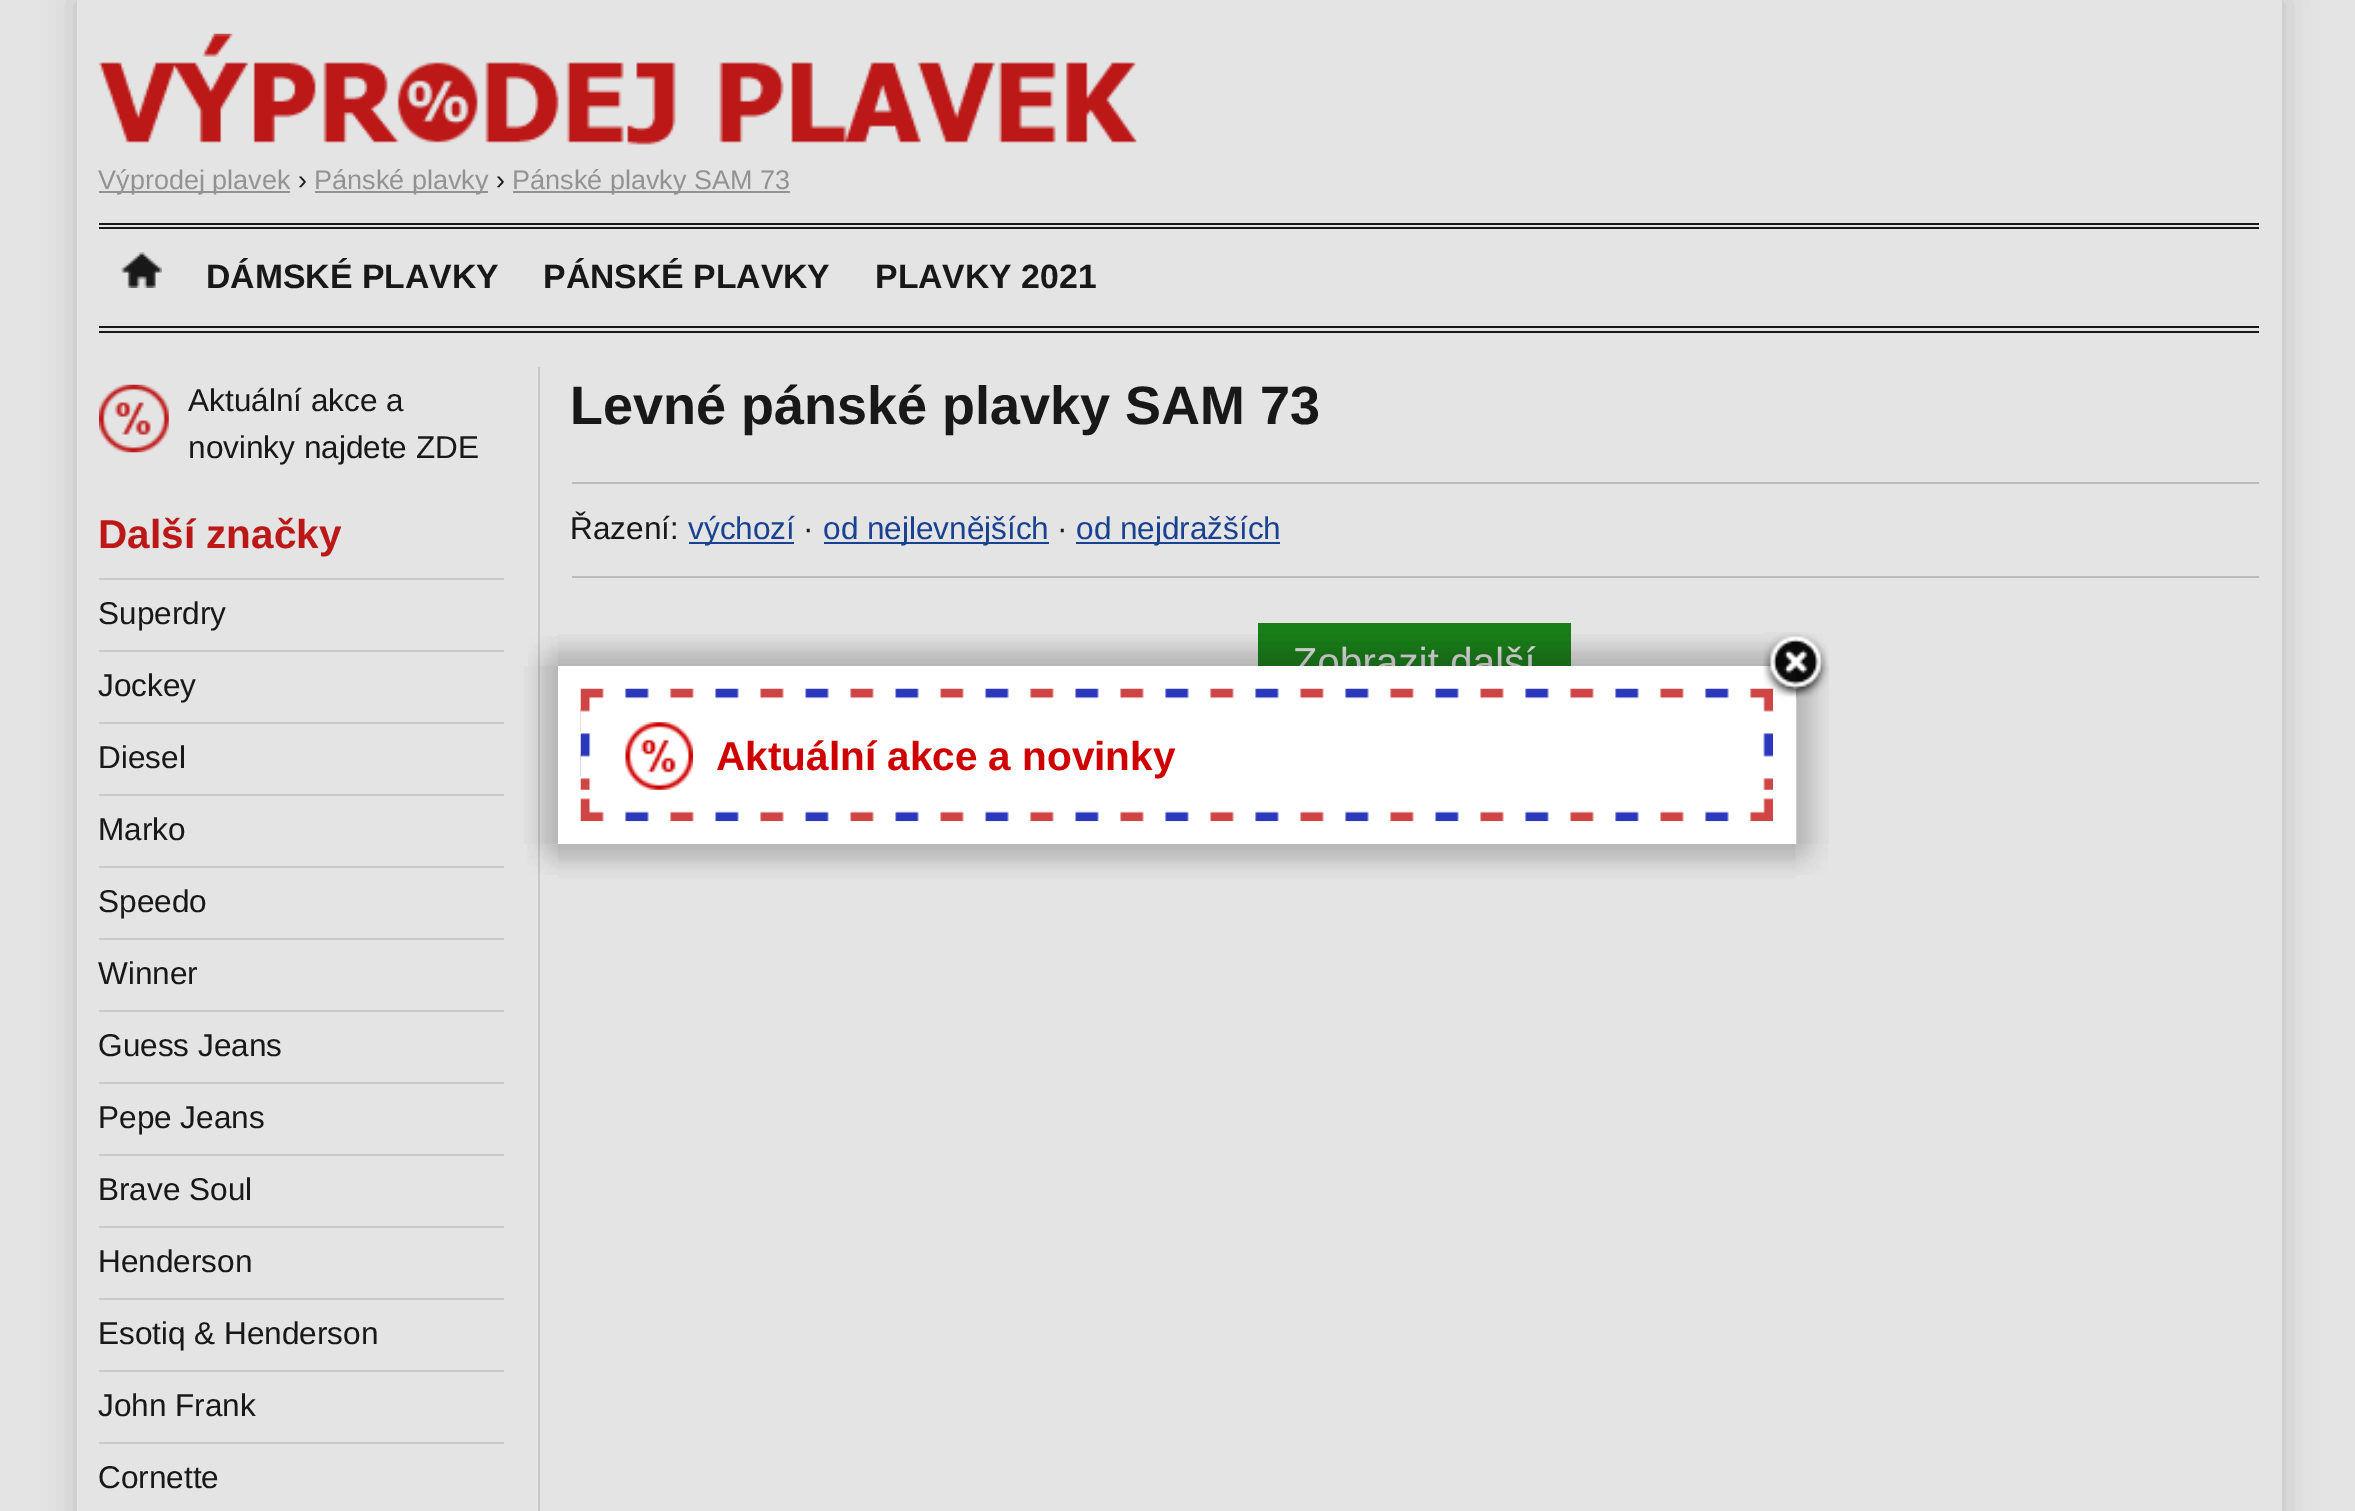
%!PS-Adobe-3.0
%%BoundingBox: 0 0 2355 1511
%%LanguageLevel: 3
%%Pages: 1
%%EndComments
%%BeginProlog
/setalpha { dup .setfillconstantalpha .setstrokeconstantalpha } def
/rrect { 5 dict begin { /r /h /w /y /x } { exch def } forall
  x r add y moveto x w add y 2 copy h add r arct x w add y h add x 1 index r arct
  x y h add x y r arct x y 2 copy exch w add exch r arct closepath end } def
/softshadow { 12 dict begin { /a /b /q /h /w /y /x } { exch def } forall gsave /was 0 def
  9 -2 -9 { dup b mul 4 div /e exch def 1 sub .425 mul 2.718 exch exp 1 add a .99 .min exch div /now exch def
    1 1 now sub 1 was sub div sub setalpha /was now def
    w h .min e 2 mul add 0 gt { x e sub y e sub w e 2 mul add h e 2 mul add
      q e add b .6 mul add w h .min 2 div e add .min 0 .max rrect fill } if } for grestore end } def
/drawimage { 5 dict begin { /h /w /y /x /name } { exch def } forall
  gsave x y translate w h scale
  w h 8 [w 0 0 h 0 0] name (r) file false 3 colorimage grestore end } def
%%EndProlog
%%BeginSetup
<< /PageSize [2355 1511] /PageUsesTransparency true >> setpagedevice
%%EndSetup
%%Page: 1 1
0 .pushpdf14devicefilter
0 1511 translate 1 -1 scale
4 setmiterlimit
0.894 setgray
0 0 2355 1511 rectfill
gsave
newpath 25 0 moveto 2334 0 lineto 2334 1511 lineto 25 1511 lineto closepath 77 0 moveto 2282 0 lineto 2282 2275 lineto 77 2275 lineto closepath eoclip newpath
0.733 setgray
77 0 2205 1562 0 17 1 softshadow
grestore
0.094 setgray
99 223 2160 2 rectfill
99 227 2160 2 rectfill
(images/1.raw) 99 33 1038 112 drawimage
0.573 setgray
99 191 191 2 rectfill
315 191 173 2 rectfill
513 191 277 2 rectfill
0.094 setgray
99 326 2160 2 rectfill
99 331 2160 2 rectfill
(images/2.raw) 121 252 41 36 drawimage
0.788 setgray
538 367 2 1144 rectfill
(images/3.raw) 99 384 70 69 drawimage
99 578 405 2 rectfill
99 650 405 2 rectfill
99 722 405 2 rectfill
99 794 405 2 rectfill
99 866 405 2 rectfill
99 938 405 2 rectfill
99 1010 405 2 rectfill
99 1082 405 2 rectfill
99 1154 405 2 rectfill
99 1226 405 2 rectfill
99 1298 405 2 rectfill
99 1370 405 2 rectfill
99 1442 405 2 rectfill
0.733 setgray
572 482 1687 2 rectfill
572 576 1687 2 rectfill
0.094 0.255 0.573 setrgbcolor
689 542 105 2 rectfill
824 542 225 2 rectfill
1076 542 204 2 rectfill
0.094 0.494 0.094 setrgbcolor
1258 623 313 43 rectfill
(images/6.raw) 558 634 1238 32 drawimage
(images/7.raw) 1795 633 31 33 drawimage
(images/12.raw) 1796 666 33 178 drawimage
(images/15.raw) 1795 843 33 32 drawimage
1 setgray
23 setlinewidth
569.5 677.5 1215 155 rectstroke
(images/9.raw) 580 708 1193 114 drawimage
(images/10.raw) 580 688 1193 102 drawimage
(images/4.raw) 1763 632 66 66 drawimage
(images/5.raw) 528 636 30 30 drawimage
(images/13.raw) 527 843 31 32 drawimage
(images/8.raw) 524 666 34 178 drawimage
(images/11.raw) 625 722 68 68 drawimage
(images/14.raw) 558 844 1238 34 drawimage
/LiberationSans-Regular [27 0 0 -27 0 0] selectfont
0.573 setgray
98 189 moveto (Výprodej plavek) show
0.094 setgray
298 189 moveto (›) show
0.573 setgray
314 189 moveto (Pánské plavky) show
0.094 setgray
496 189 moveto (›) show
0.573 setgray
512 189 moveto (Pánské plavky SAM 73) show
/LiberationSans-Bold [33.75 0 0 -33.75 0 0] selectfont
0.094 setgray
206 288 moveto (DÁMSKÉ PLAVKY) show
543 288 moveto (PÁNSKÉ PLAVKY) show
875 288 moveto (PLAVKY 2021) show
/LiberationSans-Regular [31.5 0 0 -31.5 0 0] selectfont
188 411 moveto (Aktuální akce a) show
188 458 moveto (novinky najdete ZDE) show
/LiberationSans-Bold [40.5 0 0 -40.5 0 0] selectfont
0.741 0.094 0.094 setrgbcolor
98 548 moveto (Další značky) show
/LiberationSans-Regular [31.5 0 0 -31.5 0 0] selectfont
0.094 setgray
98 624 moveto (Superdry) show
98 696 moveto (Jockey) show
98 768 moveto (Diesel) show
98 840 moveto (Marko) show
98 912 moveto (Speedo) show
98 984 moveto (Winner) show
98 1056 moveto (Guess Jeans) show
98 1128 moveto (Pepe Jeans) show
98 1200 moveto (Brave Soul) show
98 1272 moveto (Henderson) show
98 1344 moveto (Esotiq & Henderson) show
98 1416 moveto (John Frank) show
98 1488 moveto (Cornette) show
/LiberationSans-Bold [54 0 0 -54 0 0] selectfont
570 424 moveto (Levné pánské plavky SAM 73) show
/LiberationSans-Regular [31.5 0 0 -31.5 0 0] selectfont
570 539 moveto (Řazení:) show
0.094 0.255 0.573 setrgbcolor
688 539 moveto (výchozí) show
0.094 setgray
803 539 moveto (·) show
0.094 0.255 0.573 setrgbcolor
823 539 moveto (od nejlevnějších) show
0.094 setgray
1057 539 moveto (·) show
0.094 0.255 0.573 setrgbcolor
1076 539 moveto (od nejdražších) show
/LiberationSans-Bold [40.5 0 0 -40.5 0 0] selectfont
0.812 0 0 setrgbcolor
716 770 moveto (Aktuální akce a novinky) show
.poppdf14devicefilter showpage
%%EOF
